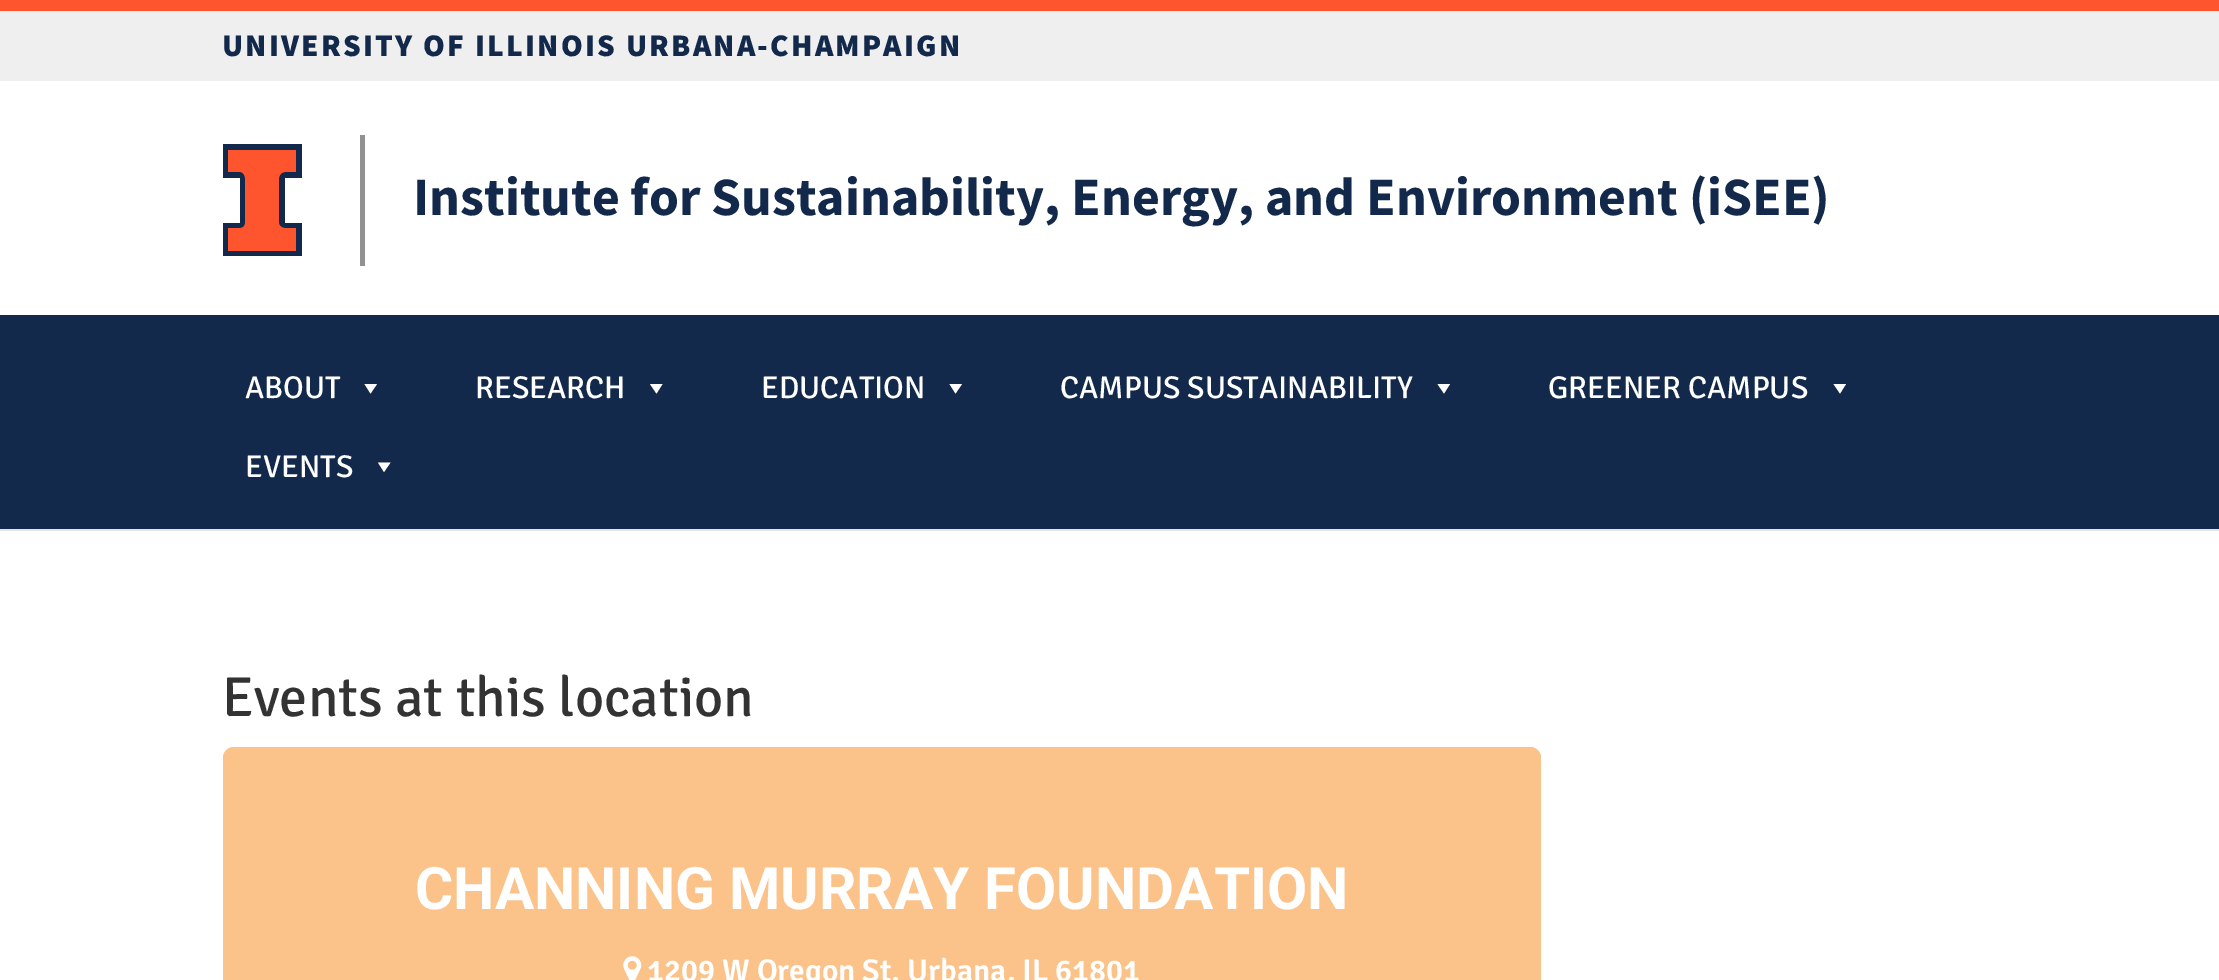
%!PS-Adobe-3.0
%%BoundingBox: 0 0 2219 980
%%LanguageLevel: 3
%%Pages: 1
%%EndComments
%%BeginProlog
/setalpha { dup .setfillconstantalpha .setstrokeconstantalpha } def
/drawimage { 5 dict begin { /h /w /y /x /name } { exch def } forall
  gsave x y translate w h scale
  w h 8 [w 0 0 h 0 0] name (r) file false 3 colorimage grestore end } def
%%EndProlog
%%BeginSetup
<< /PageSize [2219 980] /PageUsesTransparency true >> setpagedevice
%%EndSetup
%%Page: 1 1
0 .pushpdf14devicefilter
0 980 translate 1 -1 scale
4 setmiterlimit
1 setgray
0 0 2219 980 rectfill
0.902 setgray
newpath 0 529 moveto 0 531 lineto 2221 531 lineto 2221 2 lineto 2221 529 lineto closepath fill
0.937 setgray
0 11 2219 70 rectfill
1 0.333 0.18 setrgbcolor
0 0 2219 11 rectfill
0.075 0.161 0.294 setrgbcolor
newpath 302 144 moveto 302 178 lineto 285 178 lineto 285 223 lineto 302 223 lineto 302 256 lineto 223 256 lineto 223 223 lineto 240 223 lineto 240 178 lineto 223 178 lineto 223 144 lineto closepath eofill
1 0.333 0.18 setrgbcolor
newpath 296 150 moveto 296 172 lineto 285 172 lineto 282 172 279 175 279 178 curveto 279 223 lineto 279 226 282 228 285 228 curveto 296 228 lineto 296 251 lineto 228 251 lineto 228 228 lineto 240 228 lineto 243 228 245 226 245 223 curveto 245 178 lineto 245 175 243 172 240 172 curveto 228 172 lineto 228 150 lineto closepath eofill
0.569 setgray
360 135 5 131 rectfill
0.075 0.161 0.294 setrgbcolor
0 315 2219 214 rectfill
1 setgray
newpath 377 384 moveto 370.5 393.5 lineto 364.5 384 lineto closepath fill
newpath 662.5 384 moveto 656.5 393.5 lineto 650 384 lineto closepath fill
newpath 962 384 moveto 955.5 393.5 lineto 949.5 384 lineto closepath fill
newpath 1450 384 moveto 1444 393.5 lineto 1437.5 384 lineto closepath fill
newpath 1846 384 moveto 1840 393.5 lineto 1833.5 384 lineto closepath fill
newpath 390.5 462.5 moveto 384 472 lineto 378 462.5 lineto closepath fill
0.863 setgray
newpath 234 747 moveto 1530 747 lineto 1536 747 1541 752 1541 758 curveto 1541 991 lineto 223 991 lineto 223 758 lineto 223 752 228 747 234 747 curveto closepath fill
0.89 setalpha
1 0.749 0.502 setrgbcolor
newpath 234 747 moveto 1530 747 lineto 1536 747 1541 752 1541 758 curveto 1541 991 lineto 223 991 lineto 223 758 lineto 223 752 228 747 234 747 curveto closepath fill
1 setalpha
(images/1.raw) 623 956 19 24 drawimage
/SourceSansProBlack-Black [31.5 0 0 -31.5 0 0] selectfont
0.075 0.161 0.294 setrgbcolor
222 56 moveto 2.25 0 (UNIVERSITY OF ILLINOIS URBANA-CHAMPAIGN) ashow
/SourceSansPro-Bold [54 0 0 -54 0 0] selectfont
413 215 moveto (Institute for Sustainability, Energy, and Environment \(iSEE\)) show
/Signika-Regular [31.5 0 0 -31.5 0 0] selectfont
1 setgray
245 398 moveto (ABOUT) show
475 398 moveto (RESEARCH) show
761 398 moveto (EDUCATION) show
1060 398 moveto (CAMPUS SUSTAINABILITY) show
1548 398 moveto (GREENER CAMPUS) show
245 477 moveto (EVENTS) show
/Signika-Regular [56.25 0 0 -56.25 0 0] selectfont
0.2 setgray
222 716 moveto (Events at this location) show
/Roboto-Bold [58.5 0 0 -58.5 0 0] selectfont
1 setgray
415 909 moveto (CHANNING MURRAY FOUNDATION) show
/Signika-SemiBold [31.5 0 0 -31.5 0 0] selectfont
647 981 moveto (1209 W Oregon St, Urbana, IL 61801) show
.poppdf14devicefilter showpage
%%EOF
